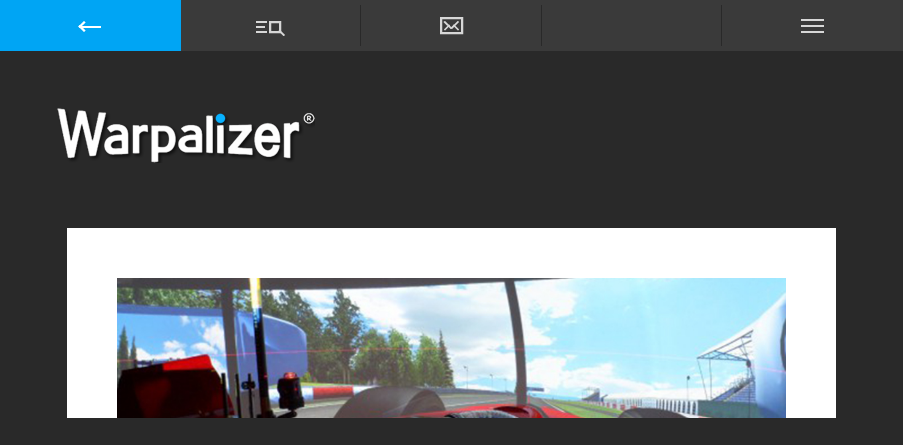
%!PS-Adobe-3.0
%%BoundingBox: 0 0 903 445
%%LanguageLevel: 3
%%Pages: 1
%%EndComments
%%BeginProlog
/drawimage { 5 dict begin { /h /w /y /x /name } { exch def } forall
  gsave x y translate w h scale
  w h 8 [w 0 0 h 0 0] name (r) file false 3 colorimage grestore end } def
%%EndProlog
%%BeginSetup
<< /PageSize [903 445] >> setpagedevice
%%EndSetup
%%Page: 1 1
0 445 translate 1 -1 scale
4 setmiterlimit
0.161 setgray
0 0 903 445 rectfill
0 0.647 0.957 setrgbcolor
0 0 181 51 rectfill
1 setgray
80 26 21 2 rectfill
newpath 78.5 26.5 moveto 84 21 lineto 85.5 22.5 lineto 79.5 28 lineto closepath fill
newpath 79.5 25 moveto 85.5 30.5 lineto 84 32 lineto 78.5 26.5 lineto closepath fill
0.227 setgray
181 0 722 51 rectfill
0.843 setgray
2 setlinewidth
270 22 10 10 rectstroke
256 21 11 2 rectfill
256 26 9 2 rectfill
256 31 11 2 rectfill
newpath 278.5 31 moveto 280 30 lineto 285 35 lineto 283.5 36 lineto closepath fill
0.161 setgray
360 5 1 41 rectfill
0.843 setgray
441 18 21 15 rectstroke
newpath 449 24.5 moveto 450 25.5 lineto 445 30.5 lineto 444 29.5 lineto closepath fill
newpath 443.5 22 moveto 445 21 lineto 452 28 lineto 451 29 lineto closepath fill
newpath 458 21 moveto 459 22 lineto 452 29 lineto 450.5 28 lineto closepath fill
newpath 453 25.5 moveto 454 24.5 lineto 459 29.5 lineto 458 30.5 lineto closepath fill
0.161 setgray
541 5 1 41 rectfill
721 5 1 41 rectfill
0.843 setgray
801 25 23 2 rectfill
801 19 23 2 rectfill
801 31 23 2 rectfill
(images/1.raw) 57 108 258 55 drawimage
1 setgray
67 228 769 190 rectfill
(images/2.raw) 117 278 669 140 drawimage
showpage
%%EOF
